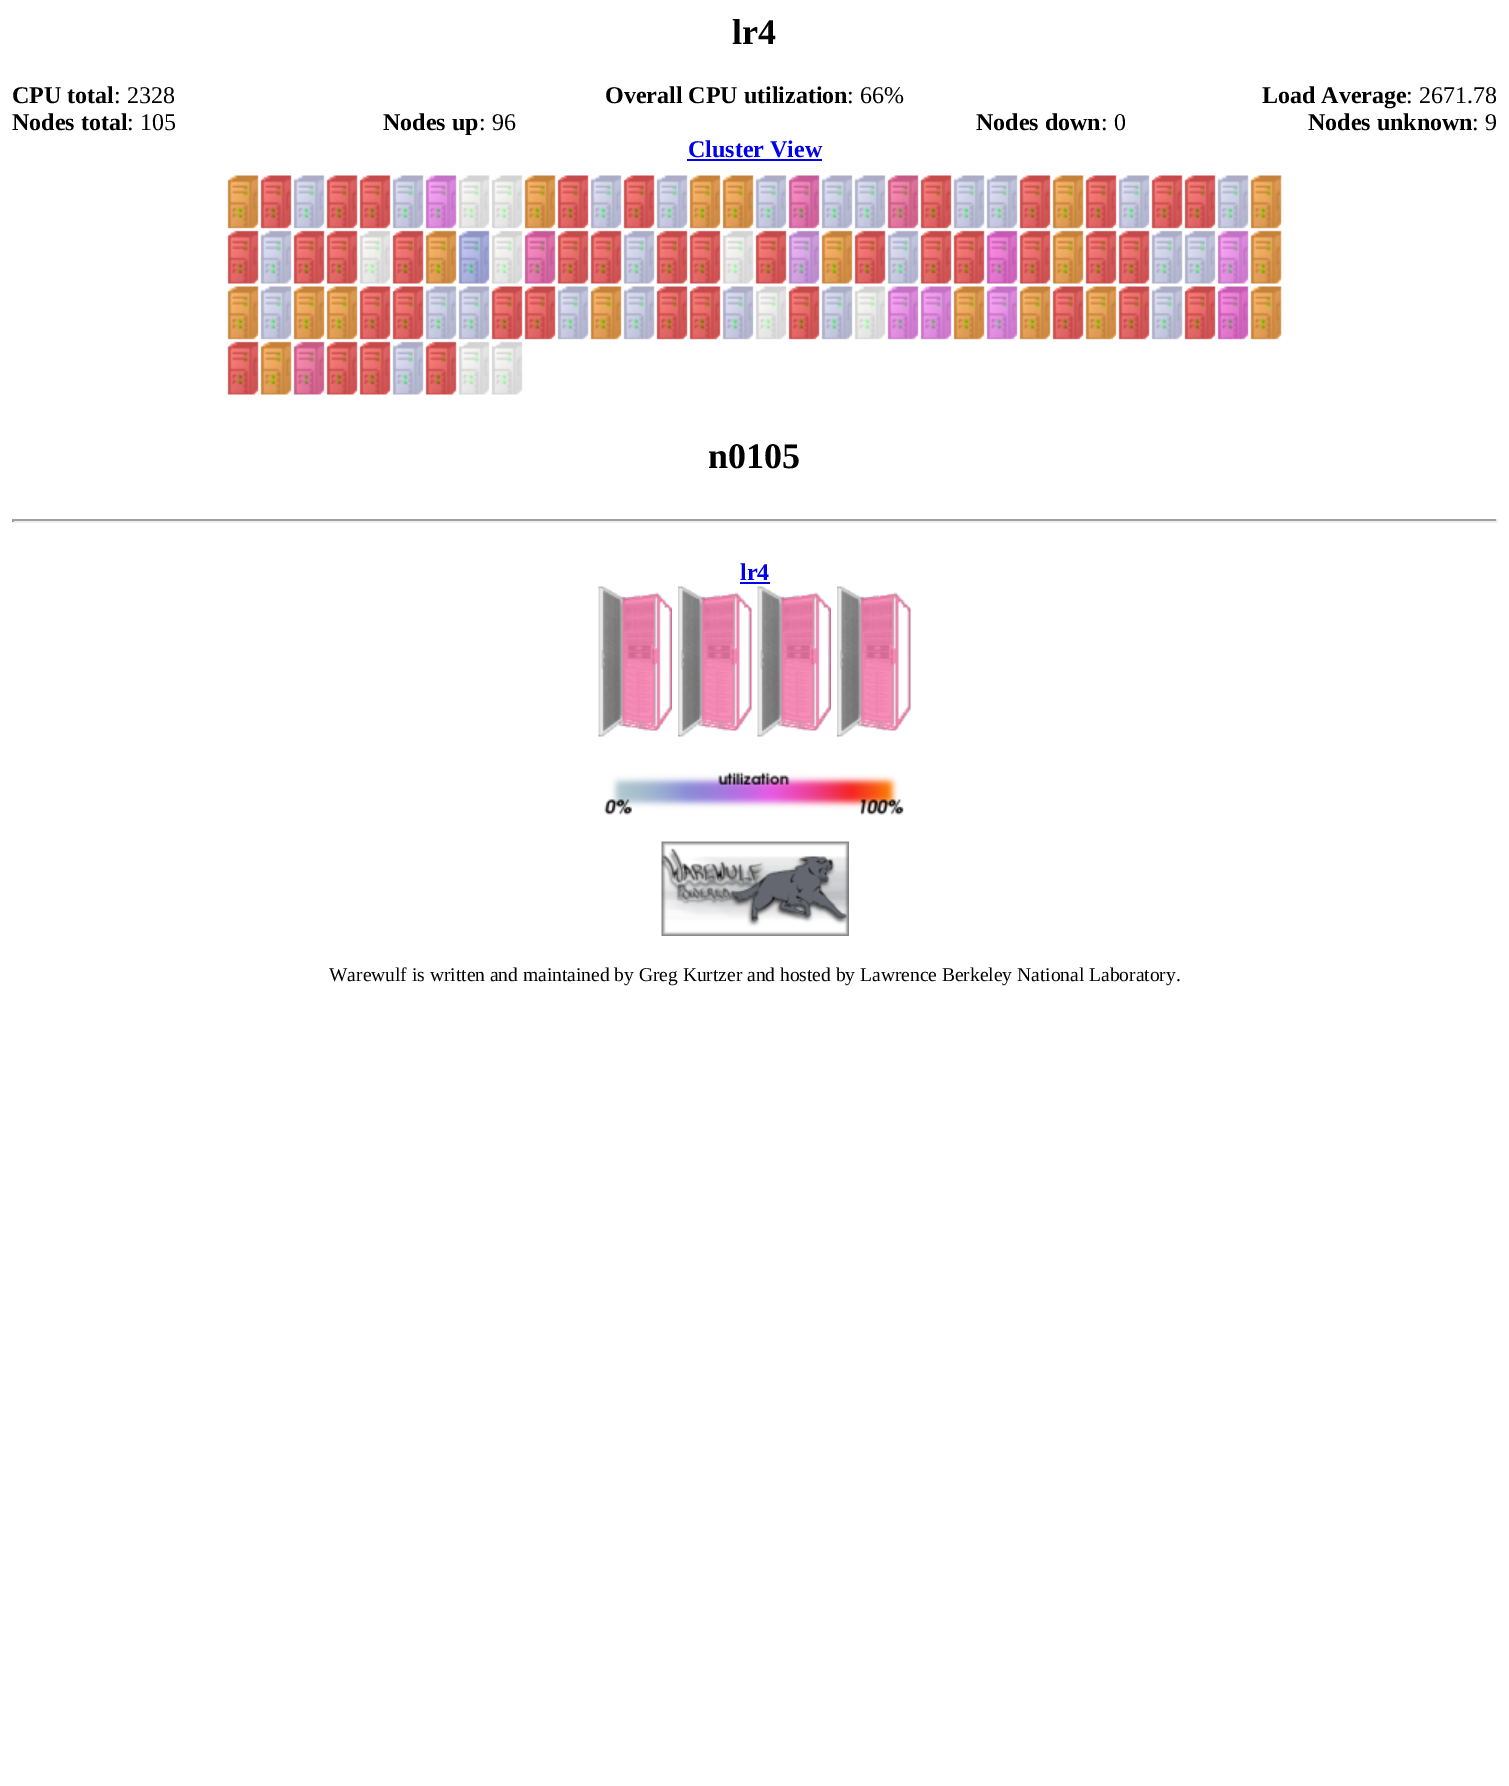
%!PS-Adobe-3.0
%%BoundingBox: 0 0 1509 1786
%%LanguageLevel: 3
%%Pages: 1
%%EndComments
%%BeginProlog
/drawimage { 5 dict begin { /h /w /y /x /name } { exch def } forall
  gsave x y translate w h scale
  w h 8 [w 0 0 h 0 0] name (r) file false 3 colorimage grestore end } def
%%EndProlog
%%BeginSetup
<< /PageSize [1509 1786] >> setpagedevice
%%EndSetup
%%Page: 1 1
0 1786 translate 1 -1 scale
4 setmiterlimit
1 setgray
0 0 1509 1786 rectfill
0 0 0.933 setrgbcolor
687 159 135 2 rectfill
(images/1.raw) 227 175 32 54 drawimage
(images/2.raw) 260 175 32 54 drawimage
(images/3.raw) 293 175 32 54 drawimage
(images/2.raw) 326 175 32 54 drawimage
(images/4.raw) 359 175 32 54 drawimage
(images/3.raw) 392 175 32 54 drawimage
(images/5.raw) 425 175 32 54 drawimage
(images/6.raw) 458 175 32 54 drawimage
(images/6.raw) 491 175 32 54 drawimage
(images/7.raw) 524 175 32 54 drawimage
(images/4.raw) 557 175 32 54 drawimage
(images/3.raw) 590 175 32 54 drawimage
(images/4.raw) 623 175 32 54 drawimage
(images/3.raw) 656 175 32 54 drawimage
(images/7.raw) 689 175 32 54 drawimage
(images/7.raw) 722 175 32 54 drawimage
(images/8.raw) 755 175 32 54 drawimage
(images/9.raw) 788 175 32 54 drawimage
(images/10.raw) 821 175 32 54 drawimage
(images/10.raw) 854 175 32 54 drawimage
(images/11.raw) 887 175 32 54 drawimage
(images/2.raw) 920 175 32 54 drawimage
(images/10.raw) 953 175 32 54 drawimage
(images/10.raw) 986 175 32 54 drawimage
(images/2.raw) 1019 175 32 54 drawimage
(images/7.raw) 1052 175 32 54 drawimage
(images/2.raw) 1085 175 32 54 drawimage
(images/3.raw) 1118 175 32 54 drawimage
(images/4.raw) 1151 175 32 54 drawimage
(images/4.raw) 1184 175 32 54 drawimage
(images/10.raw) 1217 175 32 54 drawimage
(images/1.raw) 1250 175 32 54 drawimage
(images/12.raw) 227 230 32 54 drawimage
(images/13.raw) 260 230 32 54 drawimage
(images/14.raw) 293 230 32 54 drawimage
(images/12.raw) 326 230 32 54 drawimage
(images/15.raw) 359 230 32 54 drawimage
(images/14.raw) 392 230 32 54 drawimage
(images/16.raw) 425 230 32 54 drawimage
(images/17.raw) 458 230 32 54 drawimage
(images/18.raw) 491 230 32 54 drawimage
(images/19.raw) 524 230 32 54 drawimage
(images/14.raw) 557 230 32 54 drawimage
(images/14.raw) 590 230 32 54 drawimage
(images/20.raw) 623 230 32 54 drawimage
(images/14.raw) 656 230 32 54 drawimage
(images/14.raw) 689 230 32 54 drawimage
(images/15.raw) 722 230 32 54 drawimage
(images/21.raw) 755 230 32 54 drawimage
(images/22.raw) 788 230 32 54 drawimage
(images/23.raw) 821 230 32 54 drawimage
(images/12.raw) 854 230 32 54 drawimage
(images/13.raw) 887 230 32 54 drawimage
(images/12.raw) 920 230 32 54 drawimage
(images/12.raw) 953 230 32 54 drawimage
(images/24.raw) 986 230 32 54 drawimage
(images/12.raw) 1019 230 32 54 drawimage
(images/16.raw) 1052 230 32 54 drawimage
(images/12.raw) 1085 230 32 54 drawimage
(images/14.raw) 1118 230 32 54 drawimage
(images/20.raw) 1151 230 32 54 drawimage
(images/20.raw) 1184 230 32 54 drawimage
(images/25.raw) 1217 230 32 54 drawimage
(images/23.raw) 1250 230 32 54 drawimage
(images/1.raw) 227 286 32 54 drawimage
(images/10.raw) 260 286 32 54 drawimage
(images/7.raw) 293 286 32 54 drawimage
(images/1.raw) 326 286 32 54 drawimage
(images/4.raw) 359 286 32 54 drawimage
(images/4.raw) 392 286 32 54 drawimage
(images/3.raw) 425 286 32 54 drawimage
(images/10.raw) 458 286 32 54 drawimage
(images/2.raw) 491 286 32 54 drawimage
(images/4.raw) 524 286 32 54 drawimage
(images/3.raw) 557 286 32 54 drawimage
(images/7.raw) 590 286 32 54 drawimage
(images/3.raw) 623 286 32 54 drawimage
(images/4.raw) 656 286 32 54 drawimage
(images/4.raw) 689 286 32 54 drawimage
(images/3.raw) 722 286 32 54 drawimage
(images/26.raw) 755 286 32 54 drawimage
(images/2.raw) 788 286 32 54 drawimage
(images/10.raw) 821 286 32 54 drawimage
(images/6.raw) 854 286 32 54 drawimage
(images/27.raw) 887 286 32 54 drawimage
(images/27.raw) 920 286 32 54 drawimage
(images/1.raw) 953 286 32 54 drawimage
(images/27.raw) 986 286 32 54 drawimage
(images/1.raw) 1019 286 32 54 drawimage
(images/4.raw) 1052 286 32 54 drawimage
(images/1.raw) 1085 286 32 54 drawimage
(images/4.raw) 1118 286 32 54 drawimage
(images/3.raw) 1151 286 32 54 drawimage
(images/4.raw) 1184 286 32 54 drawimage
(images/28.raw) 1217 286 32 54 drawimage
(images/1.raw) 1250 286 32 54 drawimage
(images/12.raw) 227 341 32 54 drawimage
(images/23.raw) 260 341 32 54 drawimage
(images/29.raw) 293 341 32 54 drawimage
(images/12.raw) 326 341 32 54 drawimage
(images/14.raw) 359 341 32 54 drawimage
(images/20.raw) 392 341 32 54 drawimage
(images/14.raw) 425 341 32 54 drawimage
(images/18.raw) 458 341 32 54 drawimage
(images/18.raw) 491 341 32 54 drawimage
0.624 setgray
12 519 1485 2 rectfill
0.933 setgray
1496 519 2 3 rectfill
12 521 1485 2 rectfill
0.624 setgray
12 519 2 3 rectfill
0 0 0.933 setrgbcolor
740 582 30 2 rectfill
(images/30.raw) 598 586 74 151 drawimage
(images/31.raw) 678 586 74 151 drawimage
(images/32.raw) 757 586 74 151 drawimage
(images/31.raw) 837 586 74 151 drawimage
(images/33.raw) 604 772 300 43 drawimage
(images/34.raw) 661 841 188 95 drawimage
/LiberationSerif-Bold [36 0 0 -36 0 0] selectfont
0 setgray
732 44 moveto (lr4) show
/LiberationSerif-Bold [24 0 0 -24 0 0] selectfont
12 103 moveto (CPU total) show
/LiberationSerif-Regular [24 0 0 -24 0 0] selectfont
114 103 moveto (: 2328) show
/LiberationSerif-Bold [24 0 0 -24 0 0] selectfont
605 103 moveto (Overall CPU utilization) show
/LiberationSerif-Regular [24 0 0 -24 0 0] selectfont
847 103 moveto (: 66%) show
/LiberationSerif-Bold [24 0 0 -24 0 0] selectfont
1262 103 moveto (Load Average) show
/LiberationSerif-Regular [24 0 0 -24 0 0] selectfont
1406 103 moveto (: 2671.78) show
/LiberationSerif-Bold [24 0 0 -24 0 0] selectfont
12 130 moveto (Nodes total) show
/LiberationSerif-Regular [24 0 0 -24 0 0] selectfont
127 130 moveto (: 105) show
/LiberationSerif-Bold [24 0 0 -24 0 0] selectfont
383 130 moveto (Nodes up) show
/LiberationSerif-Regular [24 0 0 -24 0 0] selectfont
479 130 moveto (: 96) show
/LiberationSerif-Bold [24 0 0 -24 0 0] selectfont
976 130 moveto (Nodes down) show
/LiberationSerif-Regular [24 0 0 -24 0 0] selectfont
1101 130 moveto (: 0) show
/LiberationSerif-Bold [24 0 0 -24 0 0] selectfont
1308 130 moveto (Nodes unknown) show
/LiberationSerif-Regular [24 0 0 -24 0 0] selectfont
1472 130 moveto (: 9) show
/LiberationSerif-Bold [24 0 0 -24 0 0] selectfont
0 0 0.933 setrgbcolor
688 157 moveto (Cluster View) show
/LiberationSerif-Bold [36 0 0 -36 0 0] selectfont
0 setgray
708 468 moveto (n0105) show
/LiberationSerif-Bold [24 0 0 -24 0 0] selectfont
0 0 0.933 setrgbcolor
740 580 moveto (lr4) show
/LiberationSerif-Regular [19.5 0 0 -19.5 0 0] selectfont
0 setgray
329 981 moveto (Warewulf is written and maintained by Greg Kurtzer and hosted by Lawrence Berkeley National Laboratory.) show
showpage
%%EOF
